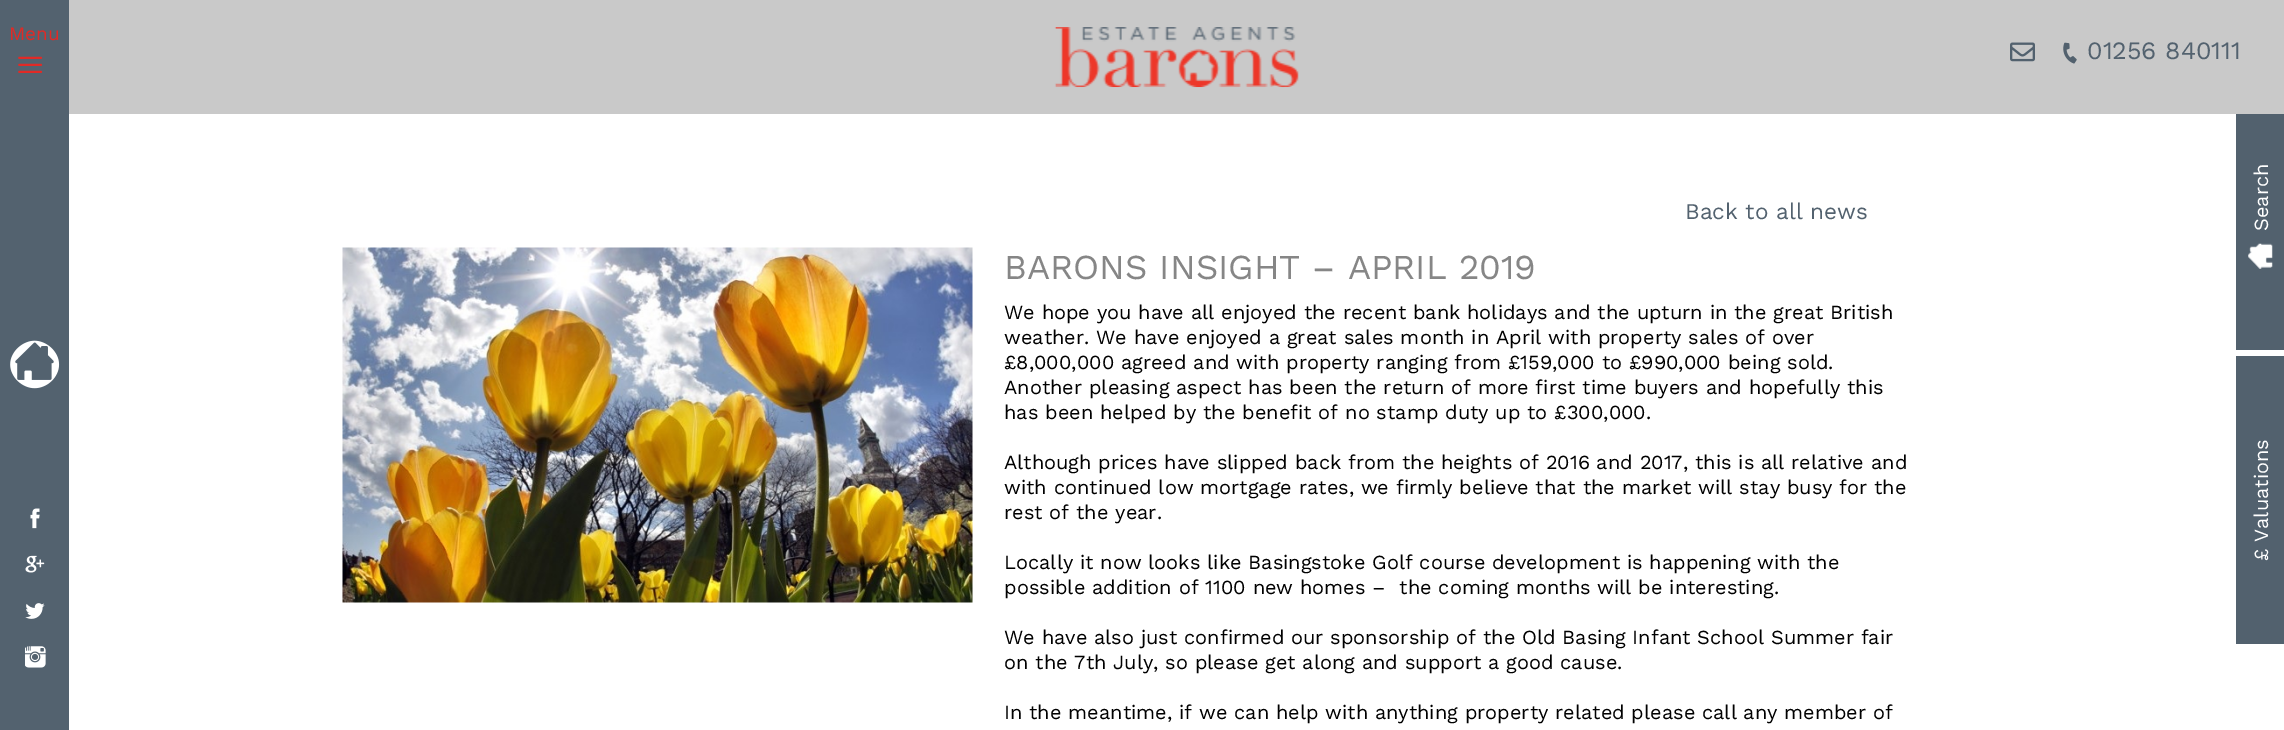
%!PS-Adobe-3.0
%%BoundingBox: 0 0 2284 730
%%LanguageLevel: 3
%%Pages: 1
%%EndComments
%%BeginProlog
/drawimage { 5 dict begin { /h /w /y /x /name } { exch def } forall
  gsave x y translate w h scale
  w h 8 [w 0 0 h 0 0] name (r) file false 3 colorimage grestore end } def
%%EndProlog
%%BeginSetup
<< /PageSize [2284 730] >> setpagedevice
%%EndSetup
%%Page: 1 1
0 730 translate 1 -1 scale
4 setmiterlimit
1 setgray
0 0 2284 730 rectfill
0.325 0.384 0.435 setrgbcolor
0 0 69 730 rectfill
(images/1.raw) 18 56 25 17 drawimage
(images/2.raw) 10 340 50 49 drawimage
(images/3.raw) 30 508 10 21 drawimage
(images/4.raw) 25 555 20 18 drawimage
(images/5.raw) 25 603 20 16 drawimage
(images/6.raw) 25 646 21 22 drawimage
0.788 setgray
69 0 2215 114 rectfill
(images/7.raw) 1054 27 245 61 drawimage
(images/8.raw) 2010 42 25 20 drawimage
(images/9.raw) 2063 42 14 22 drawimage
(images/10.raw) 342 247 631 356 drawimage
0.322 0.38 0.431 setrgbcolor
2236 114 48 236 rectfill
(images/11.raw) 2248 243 25 26 drawimage
2236 356 48 288 rectfill
/WorkSans-Regular [19 0 0 -19 0 0] selectfont
0.882 0.165 0.149 setrgbcolor
9 40 moveto (Menu) show
/WorkSans-Regular [25 0 0 -25 0 0] selectfont
0.325 0.384 0.435 setrgbcolor
2087 59 moveto (01256 840111) show
/WorkSans-Regular [22.5 0 0 -22.5 0 0] selectfont
1685 219 moveto (Back to all news) show
/WorkSans-Regular [35 0 0 -35 0 0] selectfont
0.525 setgray
1004 279 moveto (BARONS INSIGHT – APRIL 2019) show
/WorkSans-Regular [20 0 0 -20 0 0] selectfont
0 setgray
1004 319 moveto (We hope you have all enjoyed the recent bank holidays and the upturn in the great British) show
1004 344 moveto (weather. We have enjoyed a great sales month in April with property sales of over) show
1004 369 moveto (£8,000,000 agreed and with property ranging from £159,000 to £990,000 being sold.) show
1004 394 moveto (Another pleasing aspect has been the return of more first time buyers and hopefully this) show
1004 419 moveto (has been helped by the benefit of no stamp duty up to £300,000.) show
1004 469 moveto (Although prices have slipped back from the heights of 2016 and 2017, this is all relative and) show
1004 494 moveto (with continued low mortgage rates, we firmly believe that the market will stay busy for the) show
1004 519 moveto (rest of the year.) show
1004 569 moveto (Locally it now looks like Basingstoke Golf course development is happening with the) show
1004 594 moveto (possible addition of 1100 new homes –  the coming months will be interesting.) show
1004 644 moveto (We have also just confirmed our sponsorship of the Old Basing Infant School Summer fair) show
1004 669 moveto (on the 7th July, so please get along and support a good cause.) show
1004 719 moveto (In the meantime, if we can help with anything property related please call any member of) show
1 setgray
gsave 2268 231 translate -90 rotate 0 0 moveto (Search) show grestore
gsave 2268 561 translate -90 rotate 0 0 moveto (£ Valuations) show grestore
showpage
%%EOF
